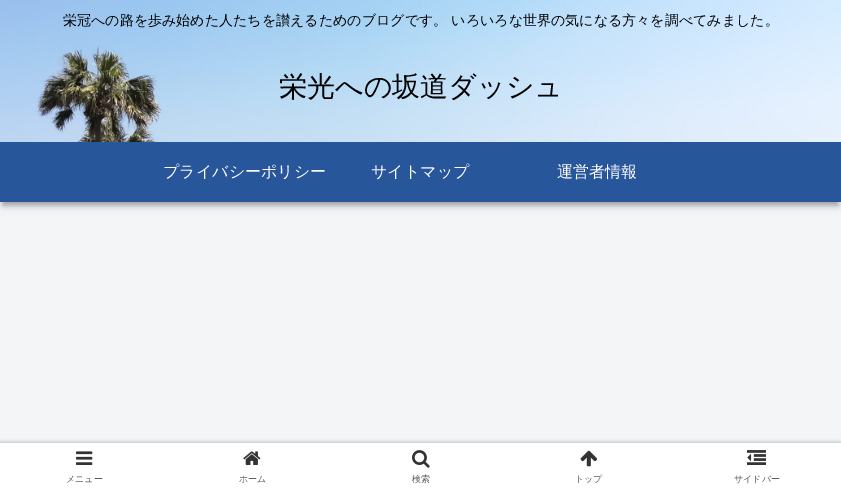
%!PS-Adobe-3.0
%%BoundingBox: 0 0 841 493
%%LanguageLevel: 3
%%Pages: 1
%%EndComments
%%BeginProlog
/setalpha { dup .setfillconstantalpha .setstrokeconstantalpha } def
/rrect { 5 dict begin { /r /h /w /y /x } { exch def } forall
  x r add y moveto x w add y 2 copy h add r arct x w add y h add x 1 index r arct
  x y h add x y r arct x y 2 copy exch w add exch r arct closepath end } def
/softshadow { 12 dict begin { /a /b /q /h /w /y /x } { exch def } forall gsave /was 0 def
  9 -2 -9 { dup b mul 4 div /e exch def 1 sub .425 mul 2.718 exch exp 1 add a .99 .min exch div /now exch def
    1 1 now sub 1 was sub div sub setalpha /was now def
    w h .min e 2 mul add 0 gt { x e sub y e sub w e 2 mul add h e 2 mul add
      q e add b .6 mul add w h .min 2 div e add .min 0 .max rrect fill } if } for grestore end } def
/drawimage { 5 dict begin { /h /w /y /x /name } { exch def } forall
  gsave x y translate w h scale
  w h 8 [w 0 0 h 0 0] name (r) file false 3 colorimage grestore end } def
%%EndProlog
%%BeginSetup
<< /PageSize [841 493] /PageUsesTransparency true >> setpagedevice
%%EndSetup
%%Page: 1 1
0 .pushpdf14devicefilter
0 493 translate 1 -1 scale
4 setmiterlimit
0.957 0.961 0.969 setrgbcolor
0 0 841 493 rectfill
0 setgray
3 9 835 196 0 5 0.18 softshadow
3 9 835 196 0 2.5 0.24 softshadow
(images/1.raw) 0 0 841 142 drawimage
0.157 0.337 0.604 setrgbcolor
0 142 841 60 rectfill
0.663 setgray
0 443 841 50 0 2.5 1 softshadow
1 setgray
0 443 841 50 rectfill
(images/2.raw) 76 451 17 14 drawimage
(images/3.raw) 243 451 18 14 drawimage
(images/4.raw) 412 450 18 18 drawimage
(images/5.raw) 580 450 17 17 drawimage
(images/6.raw) 747 450 19 15 drawimage
/WenQuanYiZenHei-Medium [14 0 0 -14 0 0] selectfont
0 setgray
63 25 moveto (栄冠への路を歩み始めた人たちを讃えるためのブログです。 いろいろな世界の気になる方々を調べてみました。) show
/WenQuanYiZenHei-Medium [28 0 0 -28 0 0] selectfont
279 96 moveto (栄光への坂道ダッシュ) show
/WenQuanYiZenHei-Medium [16 0 0 -16 0 0] selectfont
1 setgray
163 177 moveto (プライバシーポリシー) show
371 177 moveto (サイトマップ) show
557 177 moveto (運営者情報) show
/WenQuanYiZenHei-Medium [9 0 0 -9 0 0] selectfont
0.361 setgray
66 482 moveto (メニュー) show
239 482 moveto (ホーム) show
412 482 moveto (検索) show
575 482 moveto (トップ) show
734 482 moveto (サイドバー) show
.poppdf14devicefilter showpage
%%EOF
